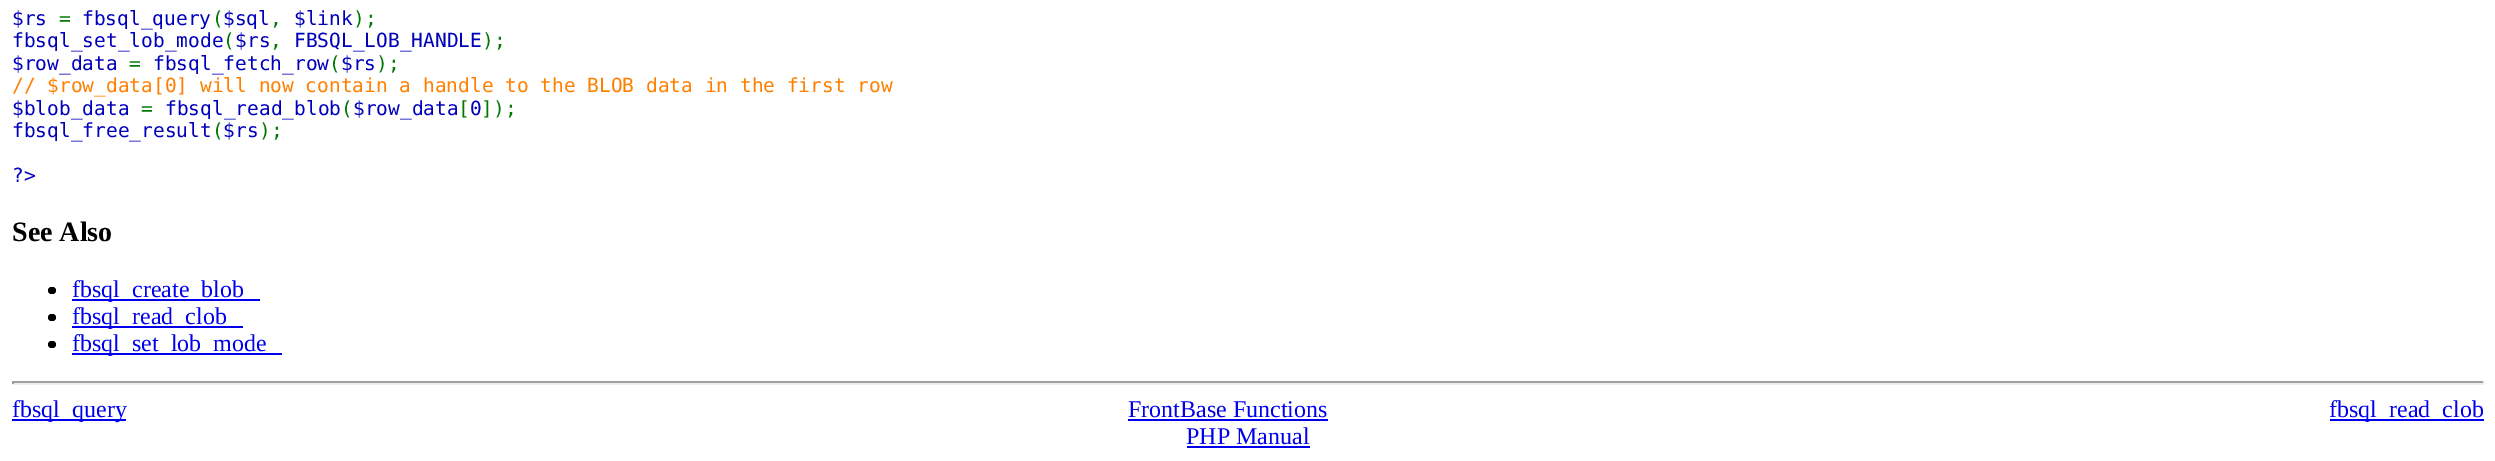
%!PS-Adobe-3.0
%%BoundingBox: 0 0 2495 461
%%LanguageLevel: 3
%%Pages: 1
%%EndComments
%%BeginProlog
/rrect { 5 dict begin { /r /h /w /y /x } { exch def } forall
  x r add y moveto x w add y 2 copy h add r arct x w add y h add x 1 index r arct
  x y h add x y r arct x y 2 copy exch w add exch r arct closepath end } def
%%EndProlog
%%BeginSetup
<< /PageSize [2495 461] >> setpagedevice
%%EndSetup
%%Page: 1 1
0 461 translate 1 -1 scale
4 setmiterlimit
1 setgray
0 0 2495 461 rectfill
0 setgray
48 287 8 7 3.5 rrect fill
0 0 0.933 setrgbcolor
72 299 188 2 rectfill
0 setgray
48 314 8 7 3.5 rrect fill
0 0 0.933 setrgbcolor
72 326 171 2 rectfill
0 setgray
48 341 8 7 3.5 rrect fill
0 0 0.933 setrgbcolor
72 353 210 2 rectfill
0.624 setgray
12 381 2472 2 rectfill
0.933 setgray
2483 381 2 3 rectfill
12 383 2472 2 rectfill
0.624 setgray
12 381 2 3 rectfill
0 0 0.933 setrgbcolor
12 419 114 2 rectfill
1128 419 200 2 rectfill
2330 419 154 2 rectfill
1187 446 123 2 rectfill
/DejaVuSansMono-Regular [19.5 0 0 -19.5 0 0] selectfont
0 0 0.733 setrgbcolor
12 25 moveto ($rs) show
82 25 moveto (fbsql_query $sql) show
0 0.467 0 setrgbcolor
59 25 moveto (=) show
212 25 moveto (\() show
0 0 0.733 setrgbcolor
294 25 moveto ($link) show
0 0.467 0 setrgbcolor
353 25 moveto (\);) show
270 25 moveto (,) show
0 0 0.733 setrgbcolor
12 47 moveto (fbsql_set_lob_mode $rs) show
0 0.467 0 setrgbcolor
223 47 moveto (\() show
270 47 moveto (,) show
0 0 0.733 setrgbcolor
294 47 moveto (FBSQL_LOB_HANDLE) show
0 0.467 0 setrgbcolor
482 47 moveto (\);) show
0 0 0.733 setrgbcolor
12 70 moveto ($row_data) show
153 70 moveto (fbsql_fetch_row $rs) show
0 0.467 0 setrgbcolor
129 70 moveto (=) show
329 70 moveto (\() show
376 70 moveto (\);) show
1 0.502 0 setrgbcolor
12 92 moveto (// $row_data[0] will now contain a handle to the BLOB data in the first row) show
0 0 0.733 setrgbcolor
12 115 moveto ($blob_data) show
165 115 moveto (fbsql_read_blob $row_data 0) show
0 0.467 0 setrgbcolor
141 115 moveto (=) show
341 115 moveto (\() show
458 115 moveto ([ ]\);) show
0 0 0.733 setrgbcolor
12 137 moveto (fbsql_free_result $rs) show
0 0.467 0 setrgbcolor
212 137 moveto (\() show
259 137 moveto (\);) show
0 0 0.733 setrgbcolor
12 182 moveto (?>) show
/LiberationSerif-Bold [28 0 0 -28 0 0] selectfont
0 setgray
12 241 moveto (See Also) show
/LiberationSerif-Regular [24 0 0 -24 0 0] selectfont
0 0 0.933 setrgbcolor
72 297 moveto (fbsql_create_blob) show
72 324 moveto (fbsql_read_clob) show
72 351 moveto (fbsql_set_lob_mode) show
12 417 moveto (fbsql_query) show
1128 417 moveto (FrontBase Functions) show
2329 417 moveto (fbsql_read_clob) show
1186 444 moveto (PHP Manual) show
showpage
%%EOF
